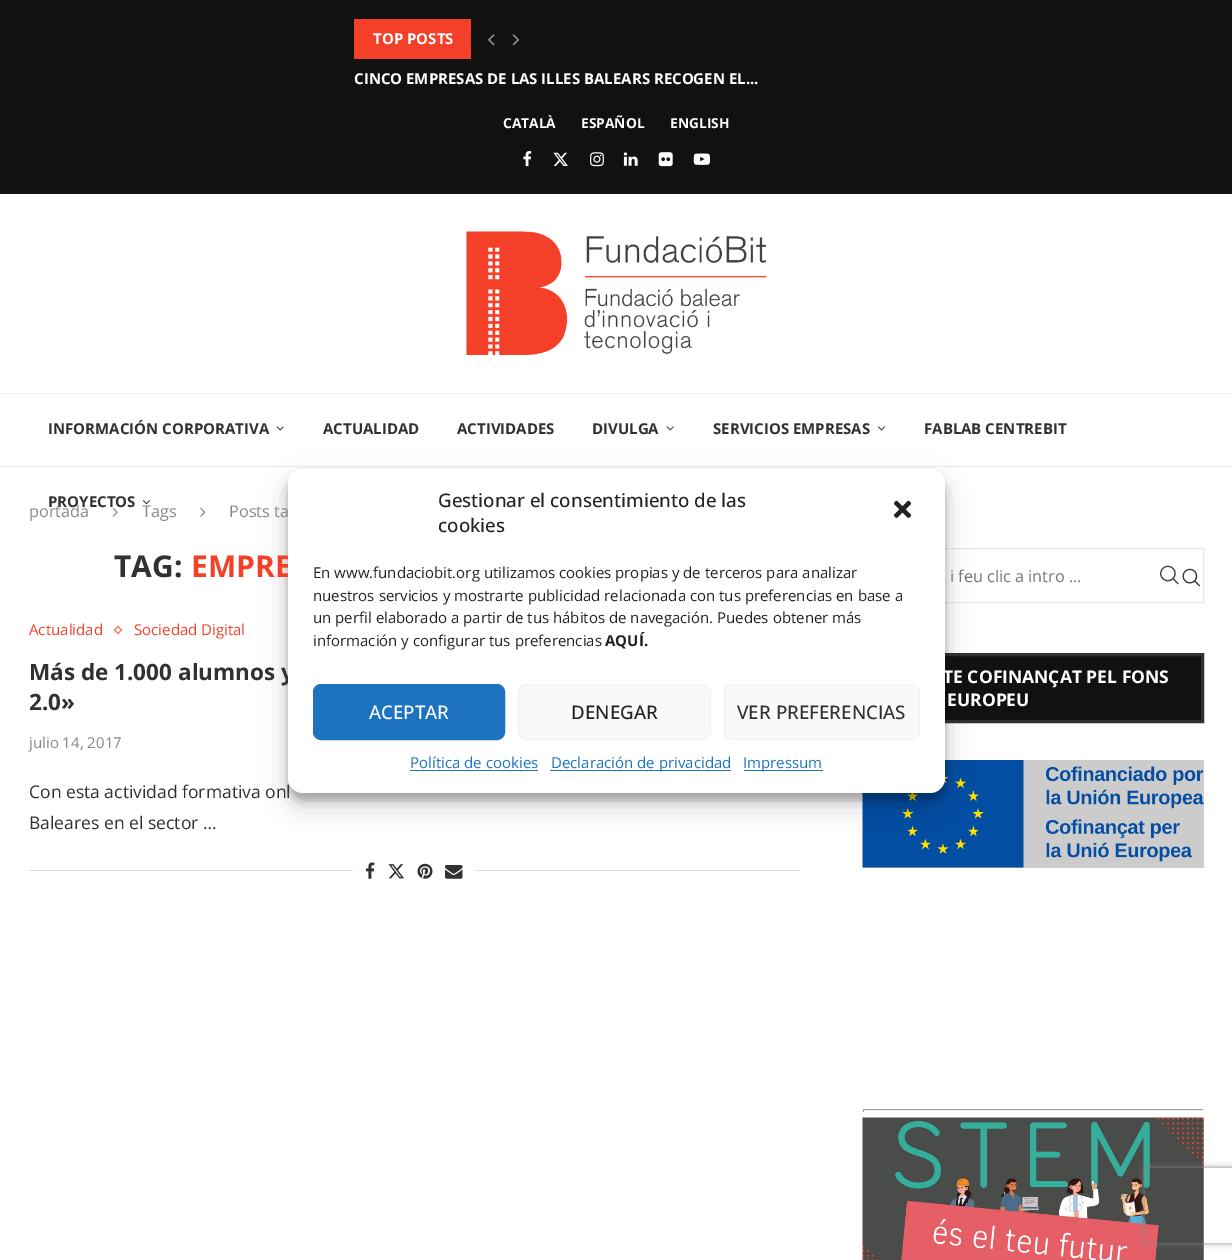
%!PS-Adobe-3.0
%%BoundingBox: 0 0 1232 1260
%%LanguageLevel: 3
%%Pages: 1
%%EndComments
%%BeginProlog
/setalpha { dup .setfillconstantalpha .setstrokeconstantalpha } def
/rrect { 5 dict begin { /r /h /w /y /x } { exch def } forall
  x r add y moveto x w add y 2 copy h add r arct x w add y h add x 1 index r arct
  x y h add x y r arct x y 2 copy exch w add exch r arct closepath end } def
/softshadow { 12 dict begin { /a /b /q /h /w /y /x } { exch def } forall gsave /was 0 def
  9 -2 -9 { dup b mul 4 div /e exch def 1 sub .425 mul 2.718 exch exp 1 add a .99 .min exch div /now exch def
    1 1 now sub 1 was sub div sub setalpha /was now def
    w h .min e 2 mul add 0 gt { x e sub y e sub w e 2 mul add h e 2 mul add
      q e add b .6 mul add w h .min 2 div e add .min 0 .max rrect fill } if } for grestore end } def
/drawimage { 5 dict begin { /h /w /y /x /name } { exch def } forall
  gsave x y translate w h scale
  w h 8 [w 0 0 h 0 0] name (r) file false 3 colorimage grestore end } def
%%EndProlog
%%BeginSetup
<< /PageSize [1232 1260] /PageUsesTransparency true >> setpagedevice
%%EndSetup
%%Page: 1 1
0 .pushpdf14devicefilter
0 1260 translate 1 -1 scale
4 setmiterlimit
1 setgray
0 0 1232 1260 rectfill
0.067 setgray
0 0 1232 194 rectfill
0.961 0.251 0.161 setrgbcolor
354 19 117 40 rectfill
(images/1.raw) 488 34 7 12 drawimage
(images/2.raw) 512 34 8 12 drawimage
(images/3.raw) 523 151 9 16 drawimage
(images/4.raw) 553 152 15 14 drawimage
(images/5.raw) 590 152 14 15 drawimage
(images/6.raw) 623 152 15 14 drawimage
(images/7.raw) 658 152 15 15 drawimage
(images/8.raw) 693 153 17 12 drawimage
(images/9.raw) 466 231 301 124 drawimage
0.925 setgray
0 393 1232 1 rectfill
0 466 1232 1 rectfill
(images/10.raw) 276 426 8 5 drawimage
(images/11.raw) 666 426 8 5 drawimage
(images/12.raw) 877 426 8 5 drawimage
(images/13.raw) 142 500 8 5 drawimage
0.914 setgray
863.5 548.5 340 54 rectstroke
(images/14.raw) 1182 568 18 19 drawimage
(images/15.raw) 112 507 6 10 drawimage
(images/16.raw) 200 507 6 10 drawimage
0.976 0.514 0.455 setrgbcolor
1.3 setlinewidth
newpath 118 626.5 moveto 121.5 630 lineto 118 633.5 lineto 114.5 630 lineto closepath stroke
0.871 setgray
29 870 771 1 rectfill
1 setgray
353 870 122 1 rectfill
(images/17.raw) 365 862 10 17 drawimage
(images/18.raw) 388 864 16 15 drawimage
(images/19.raw) 417 863 16 16 drawimage
(images/20.raw) 445 865 18 14 drawimage
(images/21.raw) 1160 565 19 20 drawimage
0.067 setgray
945 656 256 64 rectfill
0.192 setgray
3 setlinewidth
864.5 654.5 338 67 rectstroke
0.8 setgray
863 760 341 108 rectfill
(images/22.raw) 862 760 342 108 drawimage
0.624 setgray
863 1109 341 1 rectfill
0.933 setgray
1203 1109 1 3 rectfill
863 1110 341 1 rectfill
0.624 setgray
863 1109 1 3 rectfill
(images/23.raw) 862 1117 342 143 drawimage
0 setgray
288 476 657 324 15 4 0.23 softshadow
288 481 657 324 15 12.5 0.19 softshadow
gsave
newpath 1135 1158 moveto 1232 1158 lineto 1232 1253 lineto 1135 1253 lineto closepath 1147.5 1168 moveto 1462.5 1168 lineto 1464 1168 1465 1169 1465 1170.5 curveto 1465 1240.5 lineto 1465 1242 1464 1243 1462.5 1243 curveto 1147.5 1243 lineto 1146 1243 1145 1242 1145 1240.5 curveto 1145 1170.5 lineto 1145 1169 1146 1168 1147.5 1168 curveto closepath eoclip newpath
0.502 setgray
1145 1168 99 75 2.5 3 1 softshadow
grestore
/OpenSans-Bold [15 0 0 -15 0 0] selectfont
1 setgray
373 44 moveto (TOP POSTS) show
354 84 moveto (CINCO EMPRESAS DE LAS ILLES BALEARS RECOGEN EL...) show
/OpenSans-Bold [13.75 0 0 -13.75 0 0] selectfont
503 128 moveto (CATALÀ) show
581 128 moveto (ESPAÑOL) show
670 128 moveto (ENGLISH) show
/OpenSans-Bold [15 0 0 -15 0 0] selectfont
0.192 setgray
48 434 moveto (INFORMACIÓN CORPORATIVA) show
323 434 moveto (ACTUALIDAD) show
457 434 moveto (ACTIVIDADES) show
592 434 moveto (DIVULGA) show
713 434 moveto (SERVICIOS EMPRESAS) show
924 434 moveto (FABLAB CENTREBIT) show
48 507 moveto (PROYECTOS) show
/OpenSans-Regular [16.25 0 0 -16.25 0 0] selectfont
0.533 setgray
29 517 moveto (portada) show
142 517 moveto (Tags) show
229 517 moveto (Posts ta) show
/OpenSans-Bold [30 0 0 -30 0 0] selectfont
0.192 setgray
114 577 moveto (TAG:) show
0.961 0.251 0.161 setrgbcolor
191 577 moveto (EMPRE) show
/OpenSans-Regular [15 0 0 -15 0 0] selectfont
29 635 moveto (Actualidad) show
134 635 moveto (Sociedad Digital) show
/OpenSans-Bold [22.5 0 0 -22.5 0 0] selectfont
0.192 setgray
29 680 moveto (Más de 1.000 alumnos y) show
29 710 moveto (2.0») show
/OpenSans-Regular [15 0 0 -15 0 0] selectfont
0.533 setgray
29 748 moveto (julio 14, 2017) show
/OpenSans-Regular [17.5 0 0 -17.5 0 0] selectfont
0.192 setgray
29 798 moveto (Con esta actividad formativa onl) show
29 829 moveto (Baleares en el sector …) show
/OpenSans-Regular [16.25 0 0 -16.25 0 0] selectfont
0.459 setgray
950 582 moveto (i feu clic a intro ...) show
/OpenSans-Bold [17.5 0 0 -17.5 0 0] selectfont
1 setgray
943 683 moveto (TE COFINANÇAT PEL FONS) show
947 706 moveto (EUROPEU) show
288 469 657 324 15 rrect fill
/OpenSans-Medium [18.75 0 0 -18.75 0 0] selectfont
0.133 setgray
438 507 moveto (Gestionar el consentimiento de las) show
438 532 moveto (cookies) show
(images/24.raw) 893 500 19 18 drawimage
/OpenSans-Regular [15 0 0 -15 0 0] selectfont
313 578 moveto (En www.fundaciobit.org utilizamos cookies propias y de terceros para analizar) show
313 601 moveto (nuestros servicios y mostrarte publicidad relacionada con tus preferencias en base a) show
313 623 moveto (un perfil elaborado a partir de tus hábitos de navegación. Puedes obtener más) show
313 646 moveto (información y configurar tus preferencias) show
/OpenSans-Bold [15 0 0 -15 0 0] selectfont
605 646 moveto (AQUÍ.) show
0.118 0.451 0.745 setrgbcolor
313.5 684.5 191 55 7.5 rrect gsave fill grestore
1 setlinewidth
stroke
/OpenSans-Medium [18.75 0 0 -18.75 0 0] selectfont
1 setgray
369 719 moveto (ACEPTAR) show
0.976 setgray
518.5 684.5 192 55 7.5 rrect gsave fill grestore
0.949 setgray
stroke
0.133 setgray
571 719 moveto (DENEGAR) show
0.976 setgray
724.5 684.5 195 55 7.5 rrect gsave fill grestore
0.949 setgray
stroke
0.192 setgray
737 719 moveto (VER PREFERENCIAS) show
/OpenSans-Regular [15 0 0 -15 0 0] selectfont
0.118 0.451 0.745 setrgbcolor
410 768 moveto (Política de cookies) show
410 770 128 1 rectfill
550 770 181 1 rectfill
551 768 moveto (Declaración de privacidad) show
744 770 79 1 rectfill
743 768 moveto (Impressum) show
.poppdf14devicefilter showpage
%%EOF
